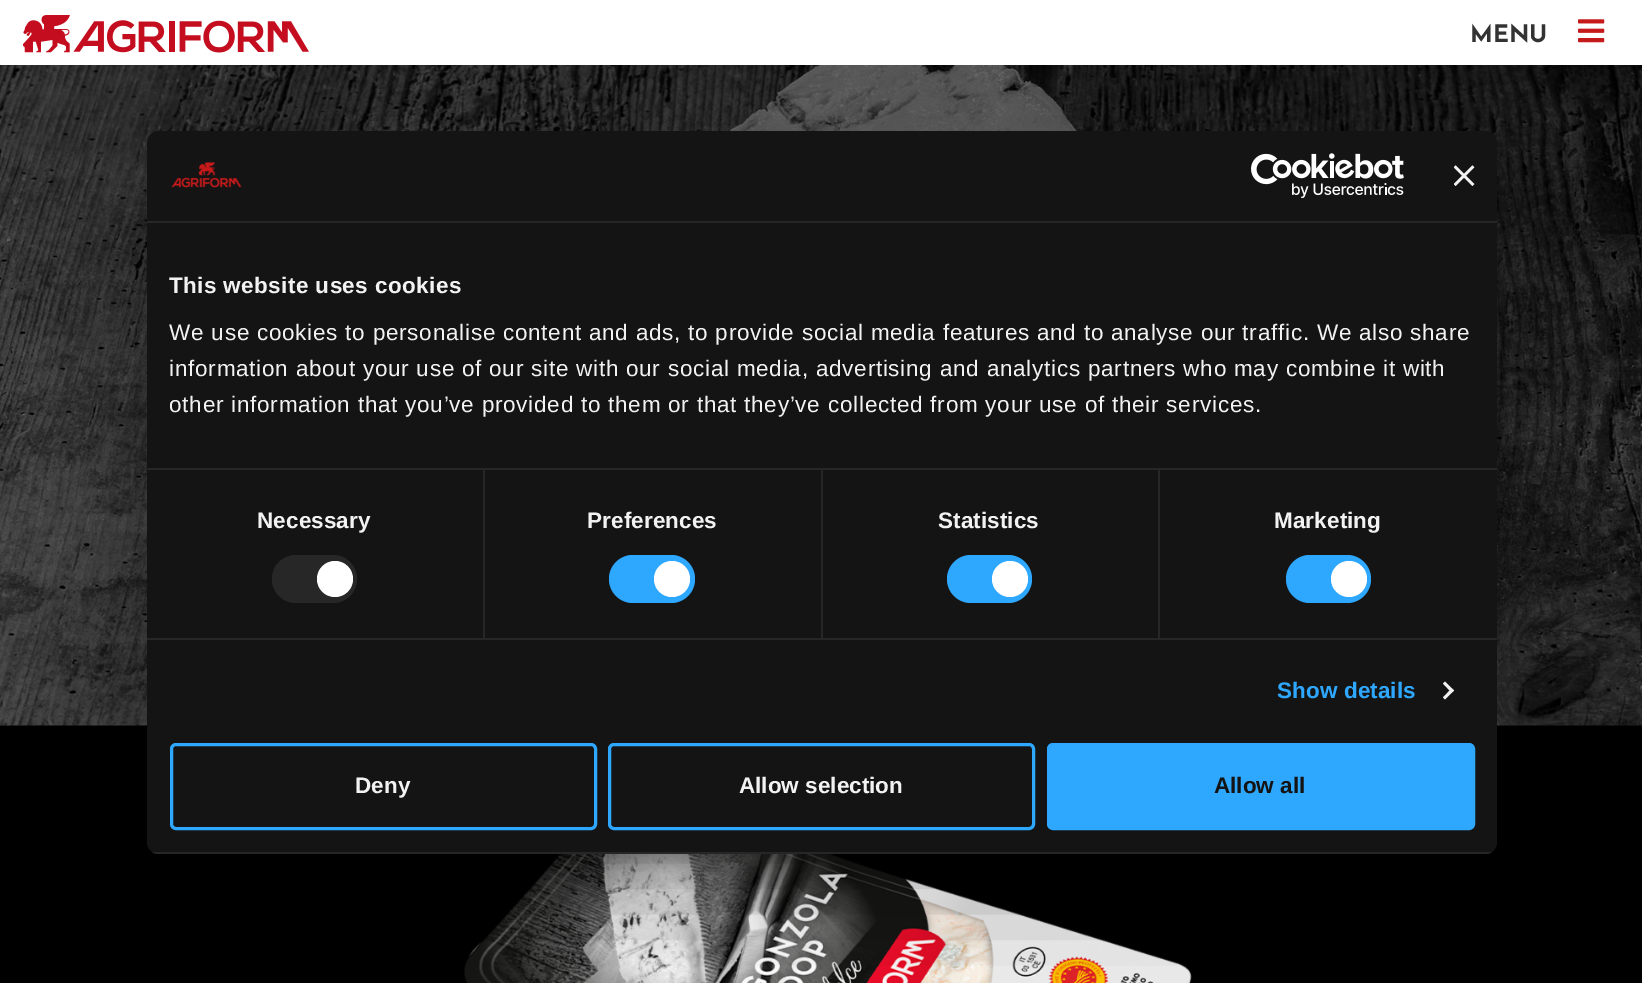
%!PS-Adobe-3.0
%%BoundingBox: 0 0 1642 983
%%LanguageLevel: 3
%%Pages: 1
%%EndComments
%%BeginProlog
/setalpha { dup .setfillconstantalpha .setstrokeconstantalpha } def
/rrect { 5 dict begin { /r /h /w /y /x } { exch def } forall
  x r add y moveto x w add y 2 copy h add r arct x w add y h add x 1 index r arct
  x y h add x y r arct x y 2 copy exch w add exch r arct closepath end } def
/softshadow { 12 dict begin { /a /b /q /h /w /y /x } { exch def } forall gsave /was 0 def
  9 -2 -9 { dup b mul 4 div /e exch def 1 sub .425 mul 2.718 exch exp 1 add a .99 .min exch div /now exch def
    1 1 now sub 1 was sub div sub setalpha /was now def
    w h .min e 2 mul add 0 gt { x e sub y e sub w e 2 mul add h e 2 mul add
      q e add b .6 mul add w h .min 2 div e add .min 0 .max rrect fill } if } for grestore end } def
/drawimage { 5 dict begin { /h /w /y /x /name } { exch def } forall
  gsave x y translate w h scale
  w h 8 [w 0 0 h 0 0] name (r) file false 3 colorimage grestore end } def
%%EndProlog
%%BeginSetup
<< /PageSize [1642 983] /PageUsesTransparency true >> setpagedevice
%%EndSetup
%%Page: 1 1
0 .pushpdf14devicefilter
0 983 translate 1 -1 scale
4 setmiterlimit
0 setgray
0 0 1642 983 rectfill
1 setgray
0 0 1642 65 rectfill
(images/1.raw) 23 15 286 38 drawimage
(images/2.raw) 1578 19 27 24 drawimage
(images/3.raw) 0 65 1642 661 drawimage
(images/4.raw) 464 854 728 129 drawimage
0 setgray
147 179 1350 723 12 51 0.3 softshadow
0.078 setgray
147 131 1350 723 12 rrect fill
0.153 setgray
147 221 1350 2 rectfill
(images/5.raw) 171 162 71 26 drawimage
(images/6.raw) 1251 153 153 45 drawimage
(images/7.raw) 1454 165 21 21 drawimage
147 468 1350 2 rectfill
147 638 1350 2 rectfill
483 470 2 168 rectfill
272 555 85 48 24 rrect fill
1 setgray
newpath 335 579 18 0 360 arc closepath fill
0.153 setgray
821 470 2 168 rectfill
0.18 0.655 1 setrgbcolor
609 555 86 48 24 rrect fill
1 setgray
newpath 672 579 18 0 360 arc closepath fill
0.153 setgray
1158 470 2 168 rectfill
0.18 0.655 1 setrgbcolor
947 555 85 48 24 rrect fill
1 setgray
newpath 1010 579 18 0 360 arc closepath fill
0.18 0.655 1 setrgbcolor
1286 555 85 48 24 rrect fill
1 setgray
newpath 1349 579 18 0 360 arc closepath fill
0.949 setgray
newpath 1445 681.5 moveto 1454 690.5 lineto 1451.5 692.5 lineto 1443 683.5 lineto closepath fill
newpath 1451.5 688.5 moveto 1454 690.5 lineto 1445 699.5 lineto 1443 697.5 lineto closepath fill
gsave
147 131 1350 723 12 rrect clip newpath
0.08 setalpha
1 setgray
147 852 1350 2 rectfill
grestore
0.18 0.655 1 setrgbcolor
3 setlinewidth
171.5 744.5 424 84 4.5 rrect stroke
609.5 744.5 424 84 4.5 rrect stroke
1048.5 744.5 425 84 4.5 rrect gsave fill grestore
stroke
/JosefinSans-Bold [24 0 0 -24 0 0] selectfont
0.2 setgray
1470 42 moveto (MENU) show
/LiberationSans-Bold [22.5 0 0 -22.5 0 0] selectfont
0.949 setgray
169 293 moveto 0.4 0 (This website uses cookies) ashow
/LiberationSans-Regular [22.5 0 0 -22.5 0 0] selectfont
169 340 moveto 0.75 0 (We use cookies to personalise content and ads, to provide social media features and to analyse our traffic. We also share) ashow
169 376 moveto 0.75 0 (information about your use of our site with our social media, advertising and analytics partners who may combine it with) ashow
169 412 moveto 0.75 0 (other information that you’ve provided to them or that they’ve collected from your use of their services.) ashow
/LiberationSans-Bold [22.5 0 0 -22.5 0 0] selectfont
257 528 moveto 0.1 0 (Necessary) ashow
587 528 moveto 0.1 0 (Preferences) ashow
938 528 moveto 0.1 0 (Statistics) ashow
1274 528 moveto 0.1 0 (Marketing) ashow
0.18 0.655 1 setrgbcolor
1277 698 moveto 0.1 0 (Show details) ashow
0.949 setgray
355 793 moveto (Deny) show
739 793 moveto (Allow selection) show
0.078 setgray
1214 793 moveto (Allow all) show
.poppdf14devicefilter showpage
%%EOF
